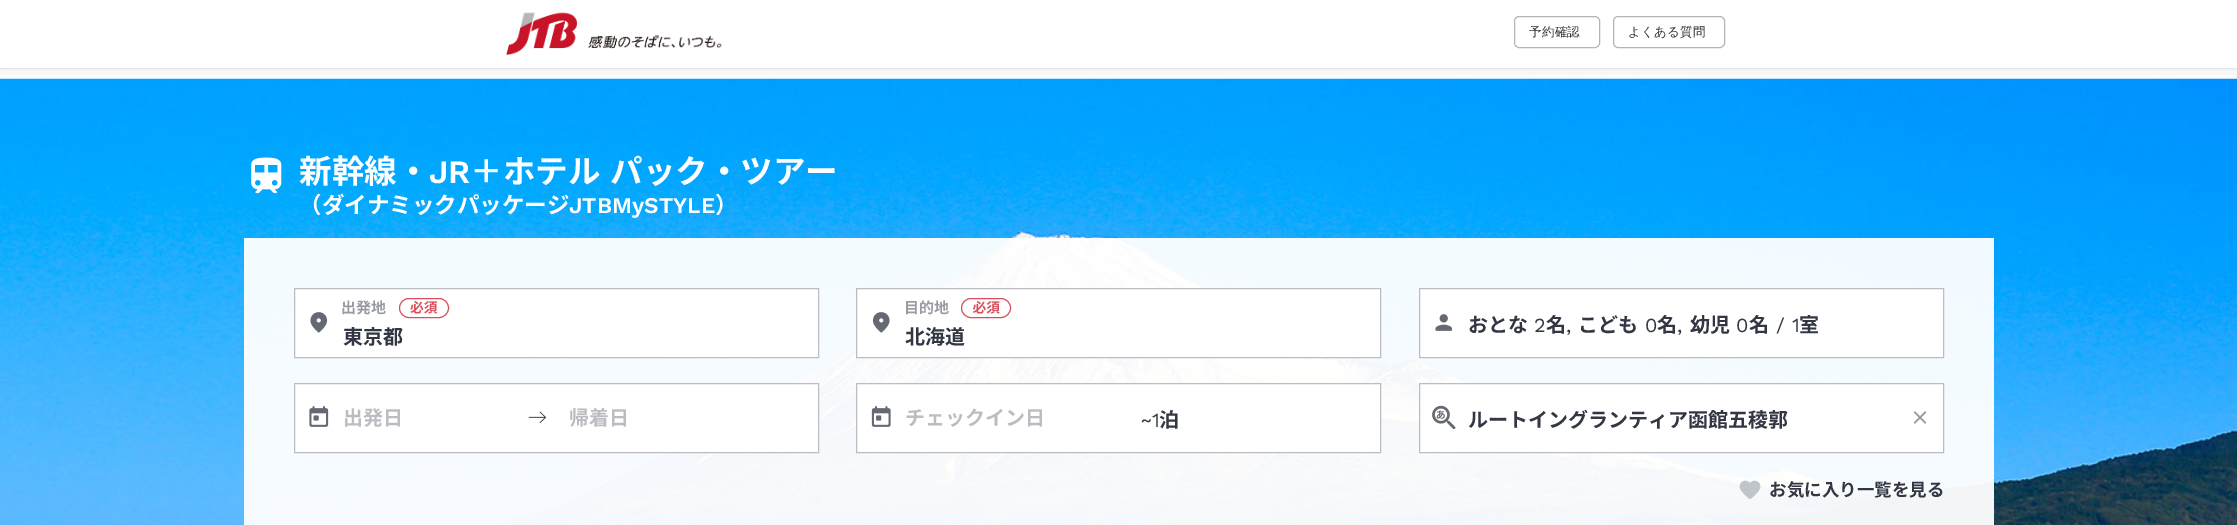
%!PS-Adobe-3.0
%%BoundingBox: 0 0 2237 525
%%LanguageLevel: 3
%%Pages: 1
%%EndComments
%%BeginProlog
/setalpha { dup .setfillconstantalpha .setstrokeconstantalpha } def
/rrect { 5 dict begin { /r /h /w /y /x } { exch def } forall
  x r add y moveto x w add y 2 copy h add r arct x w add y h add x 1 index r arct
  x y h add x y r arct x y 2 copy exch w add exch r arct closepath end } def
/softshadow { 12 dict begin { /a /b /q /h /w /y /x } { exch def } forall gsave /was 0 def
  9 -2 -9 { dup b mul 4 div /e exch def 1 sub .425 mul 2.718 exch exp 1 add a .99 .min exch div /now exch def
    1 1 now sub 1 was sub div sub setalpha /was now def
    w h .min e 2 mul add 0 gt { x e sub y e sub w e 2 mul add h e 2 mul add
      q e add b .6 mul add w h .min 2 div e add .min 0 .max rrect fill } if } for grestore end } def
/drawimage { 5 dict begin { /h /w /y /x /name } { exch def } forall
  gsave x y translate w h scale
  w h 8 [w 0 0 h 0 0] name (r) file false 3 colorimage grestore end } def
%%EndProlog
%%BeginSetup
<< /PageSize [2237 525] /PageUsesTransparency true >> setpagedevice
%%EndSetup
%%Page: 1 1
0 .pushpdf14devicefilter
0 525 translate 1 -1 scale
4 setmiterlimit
1 setgray
0 0 2237 525 rectfill
0 setgray
0 0 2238 69 0 7.5 0.1 softshadow
1 setgray
0 0 2237 68 rectfill
0.898 setgray
0 68 2237 1 rectfill
(images/1.raw) 506 12 216 43 drawimage
0.71 setgray
1514.5 16.5 85 31 4.5 rrect stroke
1613.5 16.5 111 31 4.5 rrect stroke
(images/2.raw) 0 78 2237 447 drawimage
(images/3.raw) 251 157 31 37 drawimage
0.95 setalpha
1 setgray
244 238 1750 287 rectfill
1 setalpha
newpath 294.5 288.5 moveto 818.5 288.5 lineto 818.5 357.5 lineto 294.5 357.5 lineto closepath gsave fill grestore
0.737 0.741 0.761 setrgbcolor
stroke
0.851 0.31 0.365 setrgbcolor
399.5 298.5 49 19 9.5 rrect stroke
(images/4.raw) 410 300 28 14 drawimage
(images/5.raw) 310 312 18 21 drawimage
1 setgray
newpath 856.5 288.5 moveto 1380.5 288.5 lineto 1380.5 357.5 lineto 856.5 357.5 lineto closepath gsave fill grestore
0.737 0.741 0.761 setrgbcolor
stroke
0.851 0.31 0.365 setrgbcolor
961.5 298.5 49 19 9.5 rrect stroke
(images/6.raw) 972 300 28 14 drawimage
(images/7.raw) 872 312 18 21 drawimage
1 setgray
newpath 1419.5 288.5 moveto 1943.5 288.5 lineto 1943.5 357.5 lineto 1419.5 357.5 lineto closepath gsave fill grestore
0.737 0.741 0.761 setrgbcolor
stroke
(images/8.raw) 1435 314 18 17 drawimage
1 setgray
newpath 294.5 383.5 moveto 818.5 383.5 lineto 818.5 452.5 lineto 294.5 452.5 lineto closepath gsave fill grestore
0.737 0.741 0.761 setrgbcolor
stroke
(images/9.raw) 309 406 20 21 drawimage
(images/10.raw) 528 411 19 12 drawimage
1 setgray
newpath 856.5 383.5 moveto 1380.5 383.5 lineto 1380.5 452.5 lineto 856.5 452.5 lineto closepath gsave fill grestore
0.737 0.741 0.761 setrgbcolor
stroke
(images/11.raw) 871 406 20 21 drawimage
1 setgray
newpath 1419.5 383.5 moveto 1943.5 383.5 lineto 1943.5 452.5 lineto 1419.5 452.5 lineto closepath gsave fill grestore
0.737 0.741 0.761 setrgbcolor
stroke
(images/12.raw) 1432 405 24 25 drawimage
(images/13.raw) 1913 411 14 13 drawimage
(images/14.raw) 1739 480 22 19 drawimage
/WenQuanYiZenHei-Medium [12.5 0 0 -12.5 0 0] selectfont
0.2 setgray
1529 36 moveto 0.25 0 (予約確認) ashow
1628 36 moveto 0.25 0 (よくある質問) ashow
/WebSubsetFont-Bold [32.5 0 0 -32.5 0 0] selectfont
1 setgray
299 183 moveto (新幹線・) show
/WorkSans-SemiBold [32.5 0 0 -32.5 0 0] selectfont
429 183 moveto (JR) show
/WebSubsetFont-Bold [32.5 0 0 -32.5 0 0] selectfont
470 183 moveto 3 0 32 (＋ホテル パック・ツアー) widthshow
/WebSubsetFont-Bold [22.5 0 0 -22.5 0 0] selectfont
299 213 moveto (（ダイナミックパッケージ) show
/WorkSans-SemiBold [22.5 0 0 -22.5 0 0] selectfont
569 213 moveto (JTBMySTYLE) show
/WebSubsetFont-Bold [22.5 0 0 -22.5 0 0] selectfont
715 213 moveto (）) show
/WebSubsetFont-Bold [15 0 0 -15 0 0] selectfont
0.596 0.608 0.631 setrgbcolor
341 313 moveto (出発地) show
/WebSubsetFont-Bold [20 0 0 -20 0 0] selectfont
0.196 0.216 0.263 setrgbcolor
343 344 moveto (東京都) show
/WebSubsetFont-Bold [15 0 0 -15 0 0] selectfont
0.596 0.608 0.631 setrgbcolor
904 313 moveto (目的地) show
/WebSubsetFont-Bold [20 0 0 -20 0 0] selectfont
0.196 0.216 0.263 setrgbcolor
905 344 moveto (北海道) show
1468 332 moveto (おとな) show
/WorkSans-Regular [20 0 0 -20 0 0] selectfont
1534 332 moveto (2) show
/WebSubsetFont-Bold [20 0 0 -20 0 0] selectfont
1546 332 moveto (名) show
/WorkSans-Regular [20 0 0 -20 0 0] selectfont
1566 332 moveto (,) show
/WebSubsetFont-Bold [20 0 0 -20 0 0] selectfont
1578 332 moveto (こども) show
/WorkSans-Regular [20 0 0 -20 0 0] selectfont
1645 332 moveto (0) show
/WebSubsetFont-Bold [20 0 0 -20 0 0] selectfont
1657 332 moveto (名) show
/WorkSans-Regular [20 0 0 -20 0 0] selectfont
1677 332 moveto (,) show
/WebSubsetFont-Bold [20 0 0 -20 0 0] selectfont
1690 332 moveto (幼児) show
/WorkSans-Regular [20 0 0 -20 0 0] selectfont
1736 332 moveto (0) show
/WebSubsetFont-Bold [20 0 0 -20 0 0] selectfont
1749 332 moveto (名) show
/WorkSans-Regular [20 0 0 -20 0 0] selectfont
1776 332 moveto (/ 1) show
/WebSubsetFont-Bold [20 0 0 -20 0 0] selectfont
1799 332 moveto (室) show
0.737 0.741 0.761 setrgbcolor
343 425 moveto (出発日) show
569 425 moveto (帰着日) show
905 425 moveto (チェックイン日) show
/WorkSans-Regular [20 0 0 -20 0 0] selectfont
0.196 0.216 0.263 setrgbcolor
1141 427 moveto (~1) show
/WebSubsetFont-Bold [20 0 0 -20 0 0] selectfont
1159 427 moveto (泊) show
1468 427 moveto (ルートイングランティア函館五稜郭) show
/WebSubsetFont-Bold [17.5 0 0 -17.5 0 0] selectfont
1769 496 moveto (お気に入り一覧を見る) show
.poppdf14devicefilter showpage
%%EOF
